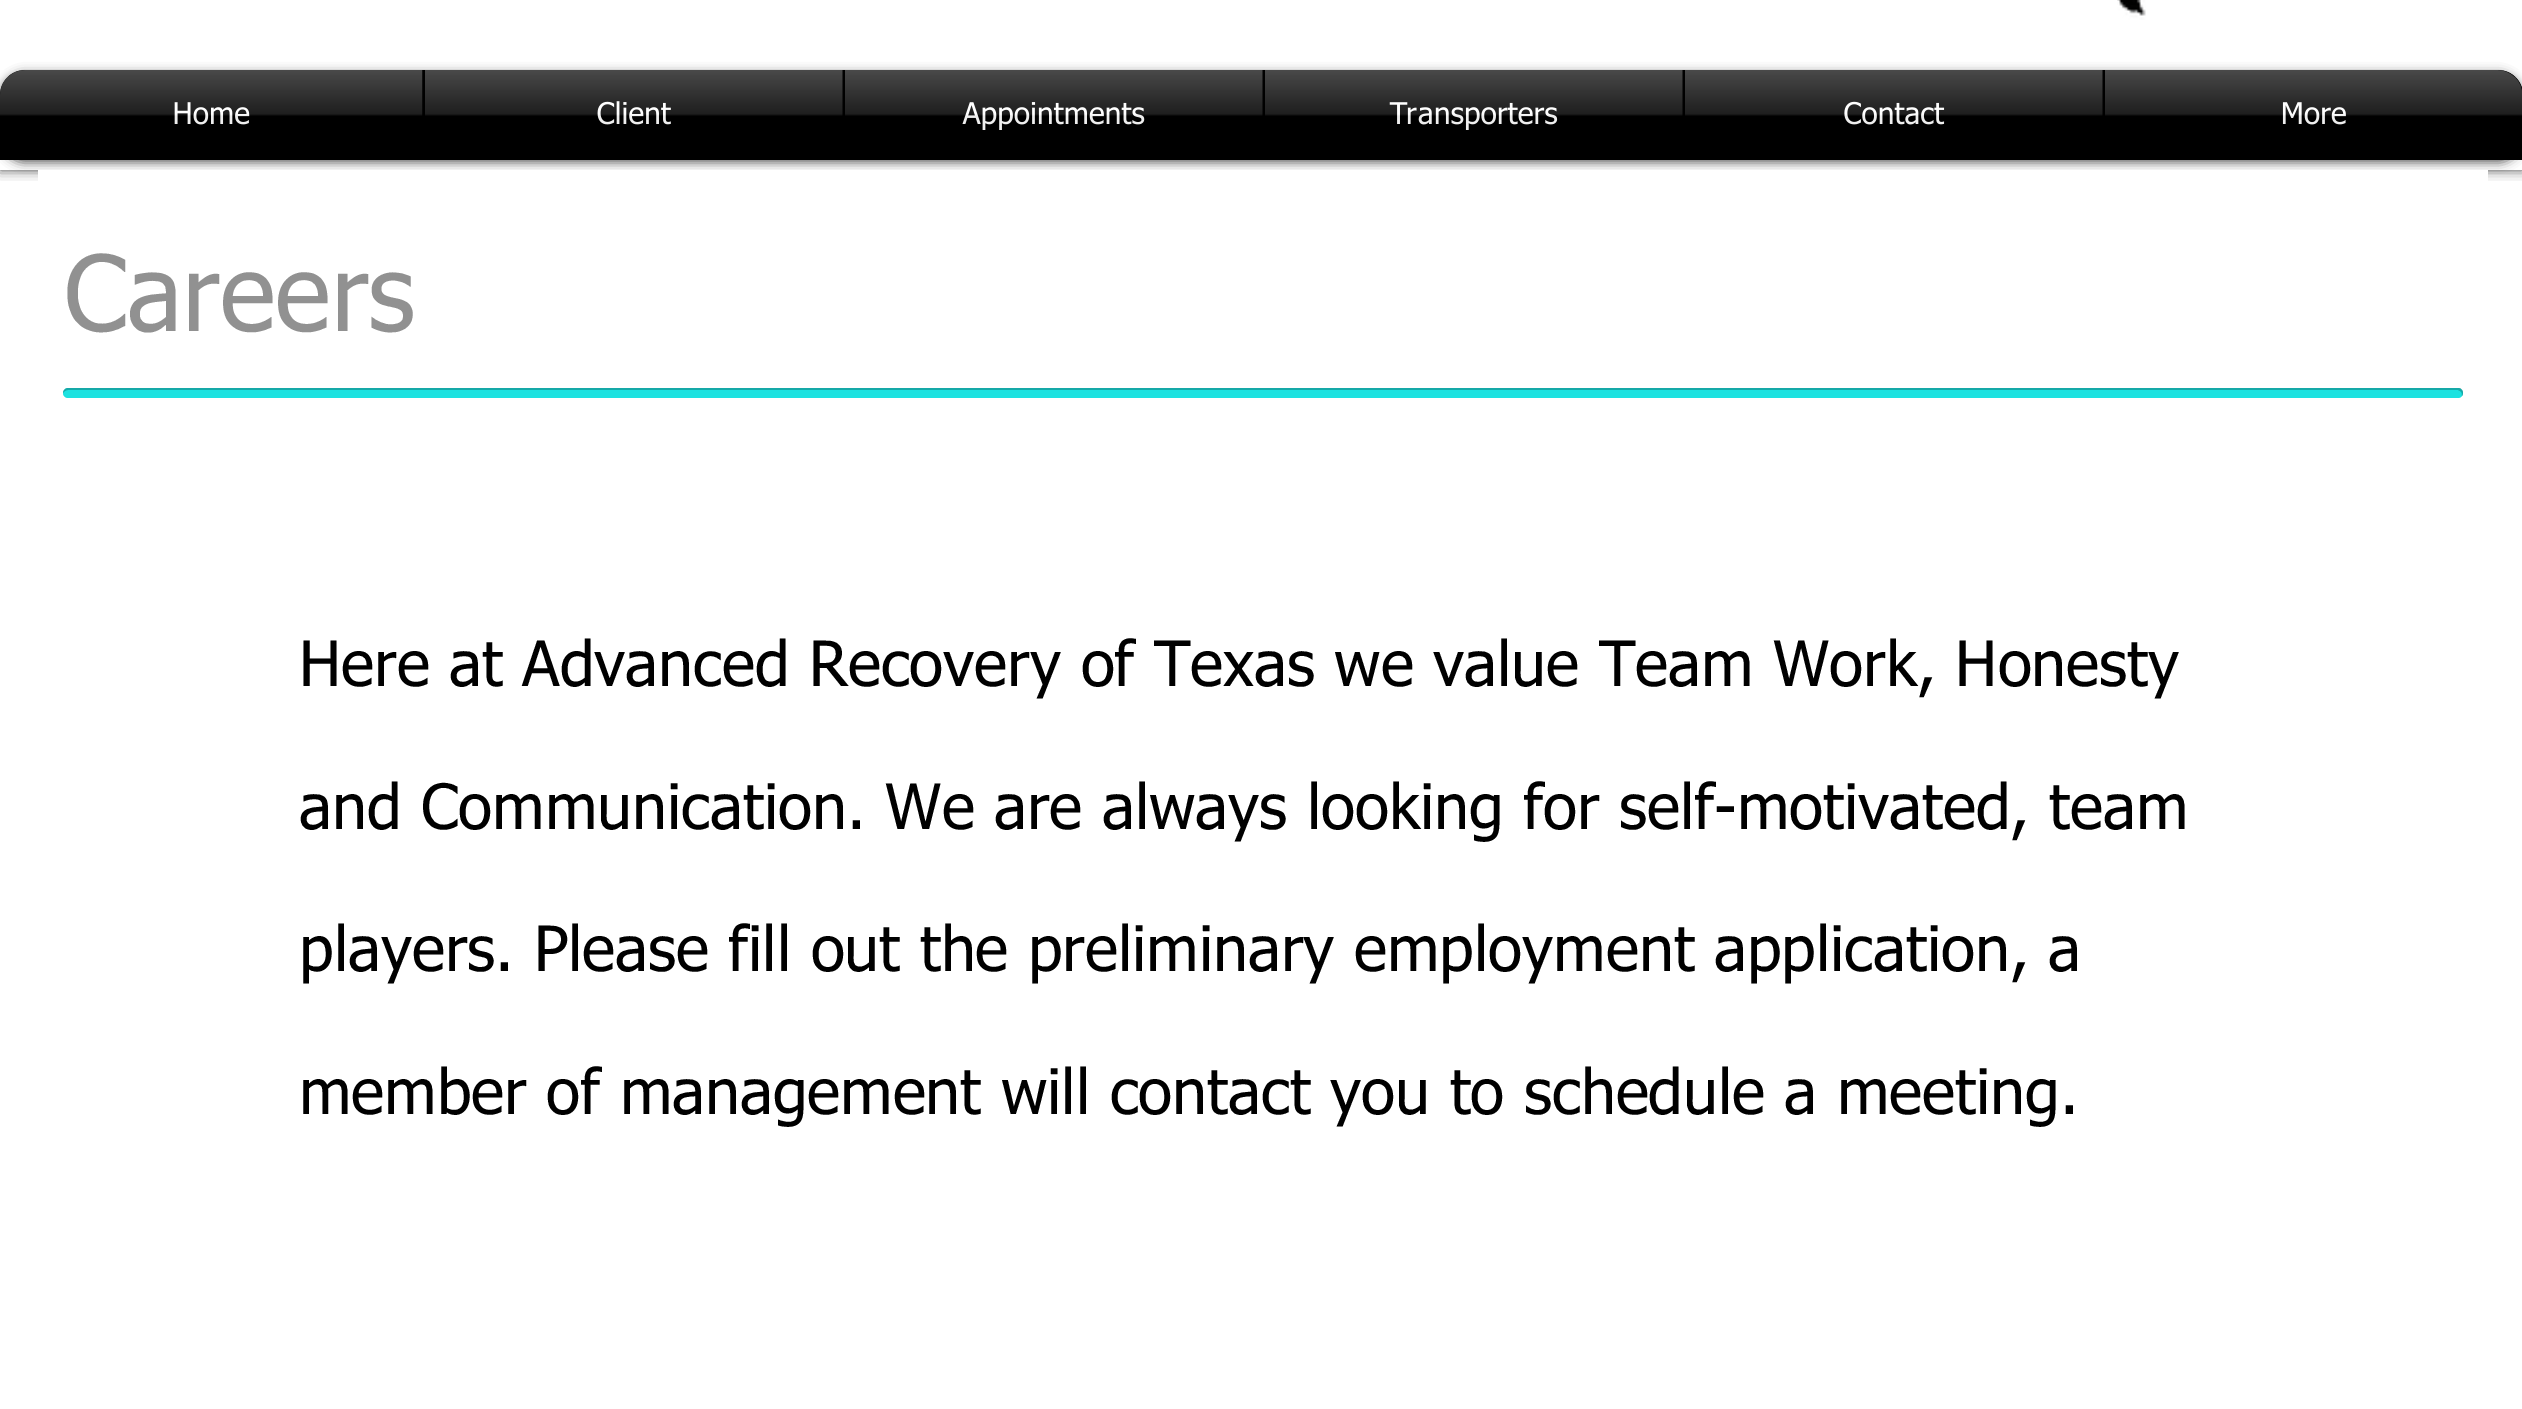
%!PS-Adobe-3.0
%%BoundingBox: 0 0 2522 1409
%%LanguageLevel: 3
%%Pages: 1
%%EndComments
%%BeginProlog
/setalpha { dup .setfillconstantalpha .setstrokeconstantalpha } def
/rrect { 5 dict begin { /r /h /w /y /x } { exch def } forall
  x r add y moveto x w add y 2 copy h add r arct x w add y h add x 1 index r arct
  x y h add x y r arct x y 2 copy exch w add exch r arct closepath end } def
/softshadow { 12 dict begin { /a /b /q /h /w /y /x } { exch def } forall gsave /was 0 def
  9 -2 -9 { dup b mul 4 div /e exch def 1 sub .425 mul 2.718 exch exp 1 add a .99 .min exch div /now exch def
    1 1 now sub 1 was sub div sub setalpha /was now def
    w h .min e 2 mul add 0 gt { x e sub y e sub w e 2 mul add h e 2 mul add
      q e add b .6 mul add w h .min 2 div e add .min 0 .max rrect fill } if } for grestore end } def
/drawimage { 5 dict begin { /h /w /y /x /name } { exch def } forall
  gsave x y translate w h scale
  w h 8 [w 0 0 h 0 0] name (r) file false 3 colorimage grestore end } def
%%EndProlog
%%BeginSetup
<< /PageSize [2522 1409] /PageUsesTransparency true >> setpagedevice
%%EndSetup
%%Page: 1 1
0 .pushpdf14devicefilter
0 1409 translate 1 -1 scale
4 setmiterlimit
1 setgray
0 0 2522 1409 rectfill
gsave
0 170 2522 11 rectclip
0 setgray
0 -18 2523 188 0 6 0.7 softshadow
grestore
(images/1.raw) 2117 0 29 20 drawimage
0 setgray
0 73 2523 90 25 5 0.6 softshadow
(images/2.raw) 0 70 2522 25 drawimage
newpath 25 70 moveto 423 70 lineto 423 160 lineto 0 160 lineto 0 95 lineto 0 81 11 70 25 70 curveto closepath fill
423 70 1680 90 rectfill
newpath 2103 70 moveto 2498 70 lineto 2512 70 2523 81 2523 95 curveto 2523 160 lineto 2103 160 lineto closepath fill
1 setgray
38 170 2450 13 rectfill
0.11 0.886 0.878 setrgbcolor
63 388 2400 10 5 rrect fill
0.25 setalpha
0 setgray
newpath 68 390 moveto 2458 390 lineto 2460 391 lineto 2462 392 2462 394 2462 396 curveto 2464 393 2463 390 2460 388 curveto 2458 388 lineto 68 388 lineto 65 388 63 391 63 393 curveto 64 392 65 390 68 390 curveto closepath fill
/tahoma-Regular [30 0 0 -30 0 0] selectfont
1 setalpha
1 setgray
172 124 moveto (Home) show
(images/3.raw) 0 70 423 55 drawimage
597 124 moveto (Client) show
(images/4.raw) 425 70 418 55 drawimage
963 124 moveto (Appointments) show
(images/5.raw) 845 70 418 60 drawimage
1390 124 moveto (Transporters) show
(images/6.raw) 1265 70 418 60 drawimage
1843 124 moveto (Contact) show
(images/7.raw) 1685 70 418 55 drawimage
2281 124 moveto (More) show
(images/8.raw) 2105 70 417 55 drawimage
/tahoma-Regular [105 0 0 -105 0 0] selectfont
0.569 setgray
64 331 moveto (Careers) show
/tahoma-Regular [62.5 0 0 -62.5 0 0] selectfont
0 setgray
299 686 moveto (Here at Advanced Recovery of Texas we value Team Work, Honesty) show
299 829 moveto (and Communication. We are always looking for self-motivated, team) show
299 971 moveto (players. Please fill out the preliminary employment application, a) show
299 1114 moveto (member of management will contact you to schedule a meeting.) show
.poppdf14devicefilter showpage
%%EOF
